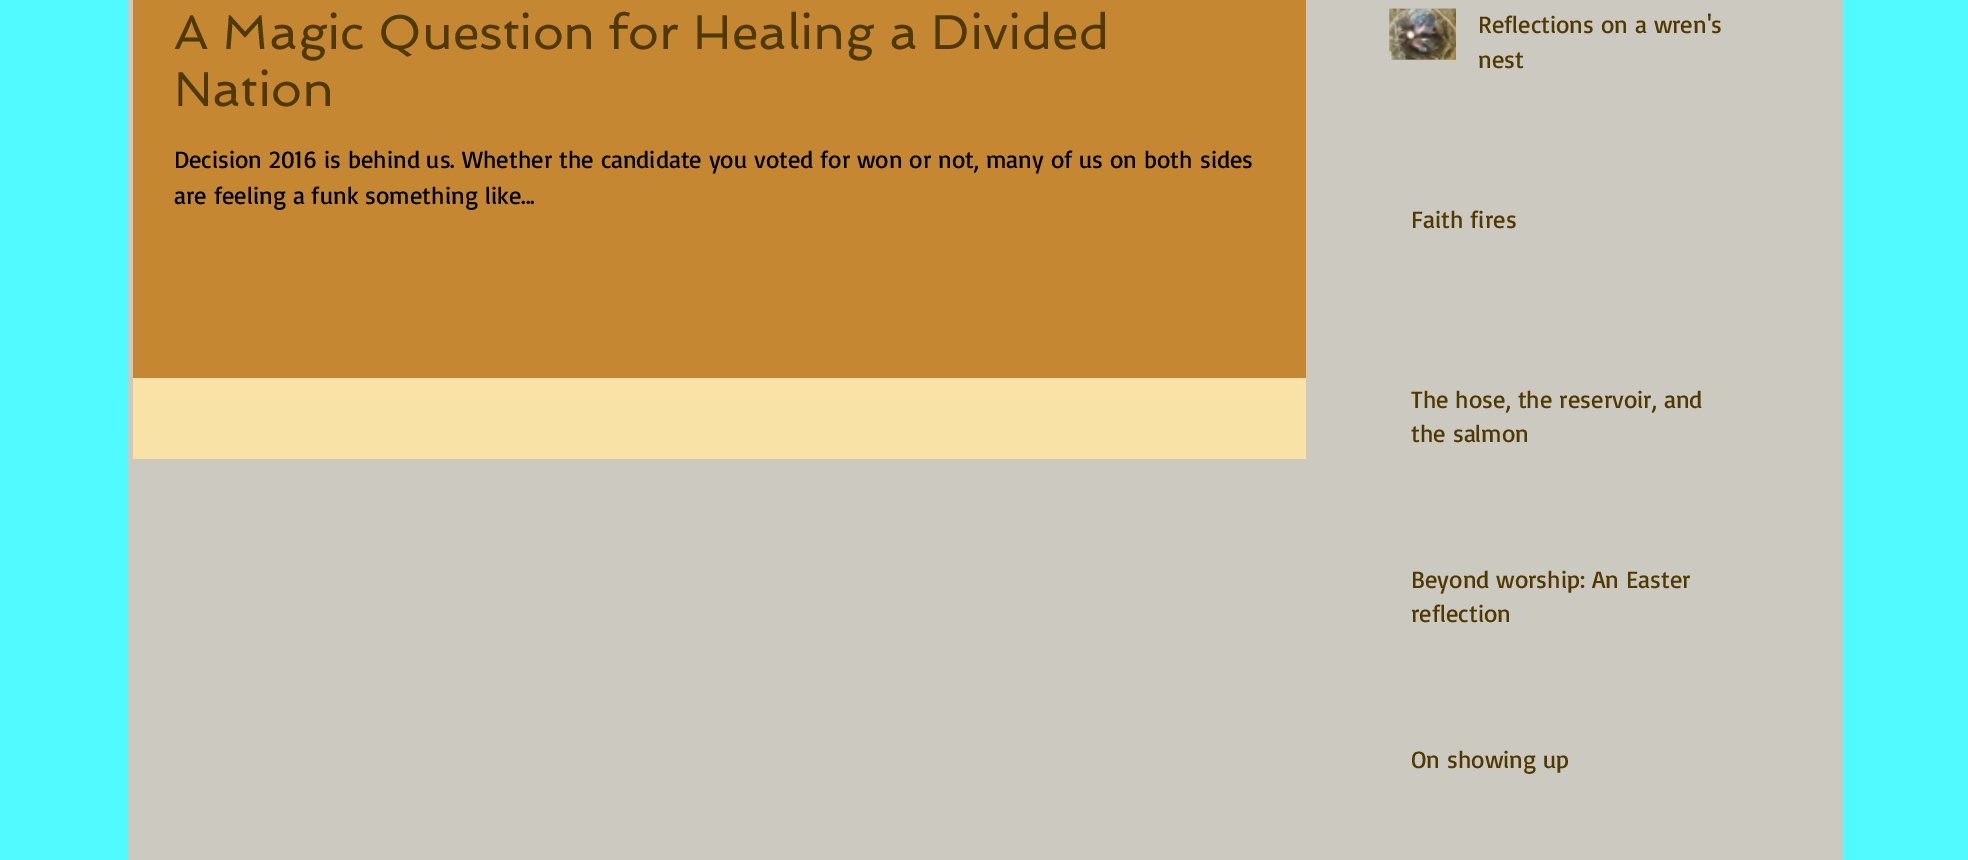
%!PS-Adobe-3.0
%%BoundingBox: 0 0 1968 860
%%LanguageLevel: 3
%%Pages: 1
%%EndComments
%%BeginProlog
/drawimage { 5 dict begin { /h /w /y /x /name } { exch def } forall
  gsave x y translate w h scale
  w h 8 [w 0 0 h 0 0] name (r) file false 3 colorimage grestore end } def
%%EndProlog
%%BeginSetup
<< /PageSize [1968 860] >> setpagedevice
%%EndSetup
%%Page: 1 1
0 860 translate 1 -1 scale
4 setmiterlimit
0.314 0.98 0.996 setrgbcolor
0 0 1968 860 rectfill
0.8 0.788 0.757 setrgbcolor
128 0 1715 860 rectfill
0.976 0.886 0.651 setrgbcolor
133 378 1173 81 rectfill
0.776 0.529 0.2 setrgbcolor
133 0 1173 378 rectfill
(images/1.raw) 1389 8 67 52 drawimage
(images/2.raw) 1389 8 67 52 drawimage
/Spinnaker-Regular [49 0 0 -49 0 0] selectfont
0.31 0.224 0 setrgbcolor
174 49 moveto (A Magic Question for Healing a Divided) show
174 106 moveto (Nation) show
/Basic-Regular [24.5 0 0 -24.5 0 0] selectfont
0 setgray
174 168 moveto (Decision 2016 is behind us. Whether the candidate you voted for won or not, many of us on both sides) show
174 204 moveto (are feeling a funk something like...) show
0.31 0.224 0 setrgbcolor
1478 33 moveto (Reflections on a wren's) show
1478 68 moveto (nest) show
1411 228 moveto (Faith fires) show
1411 408 moveto (The hose, the reservoir, and) show
1411 442 moveto (the salmon) show
1411 588 moveto (Beyond worship: An Easter) show
1411 622 moveto (reflection) show
1411 768 moveto (On showing up) show
showpage
%%EOF
